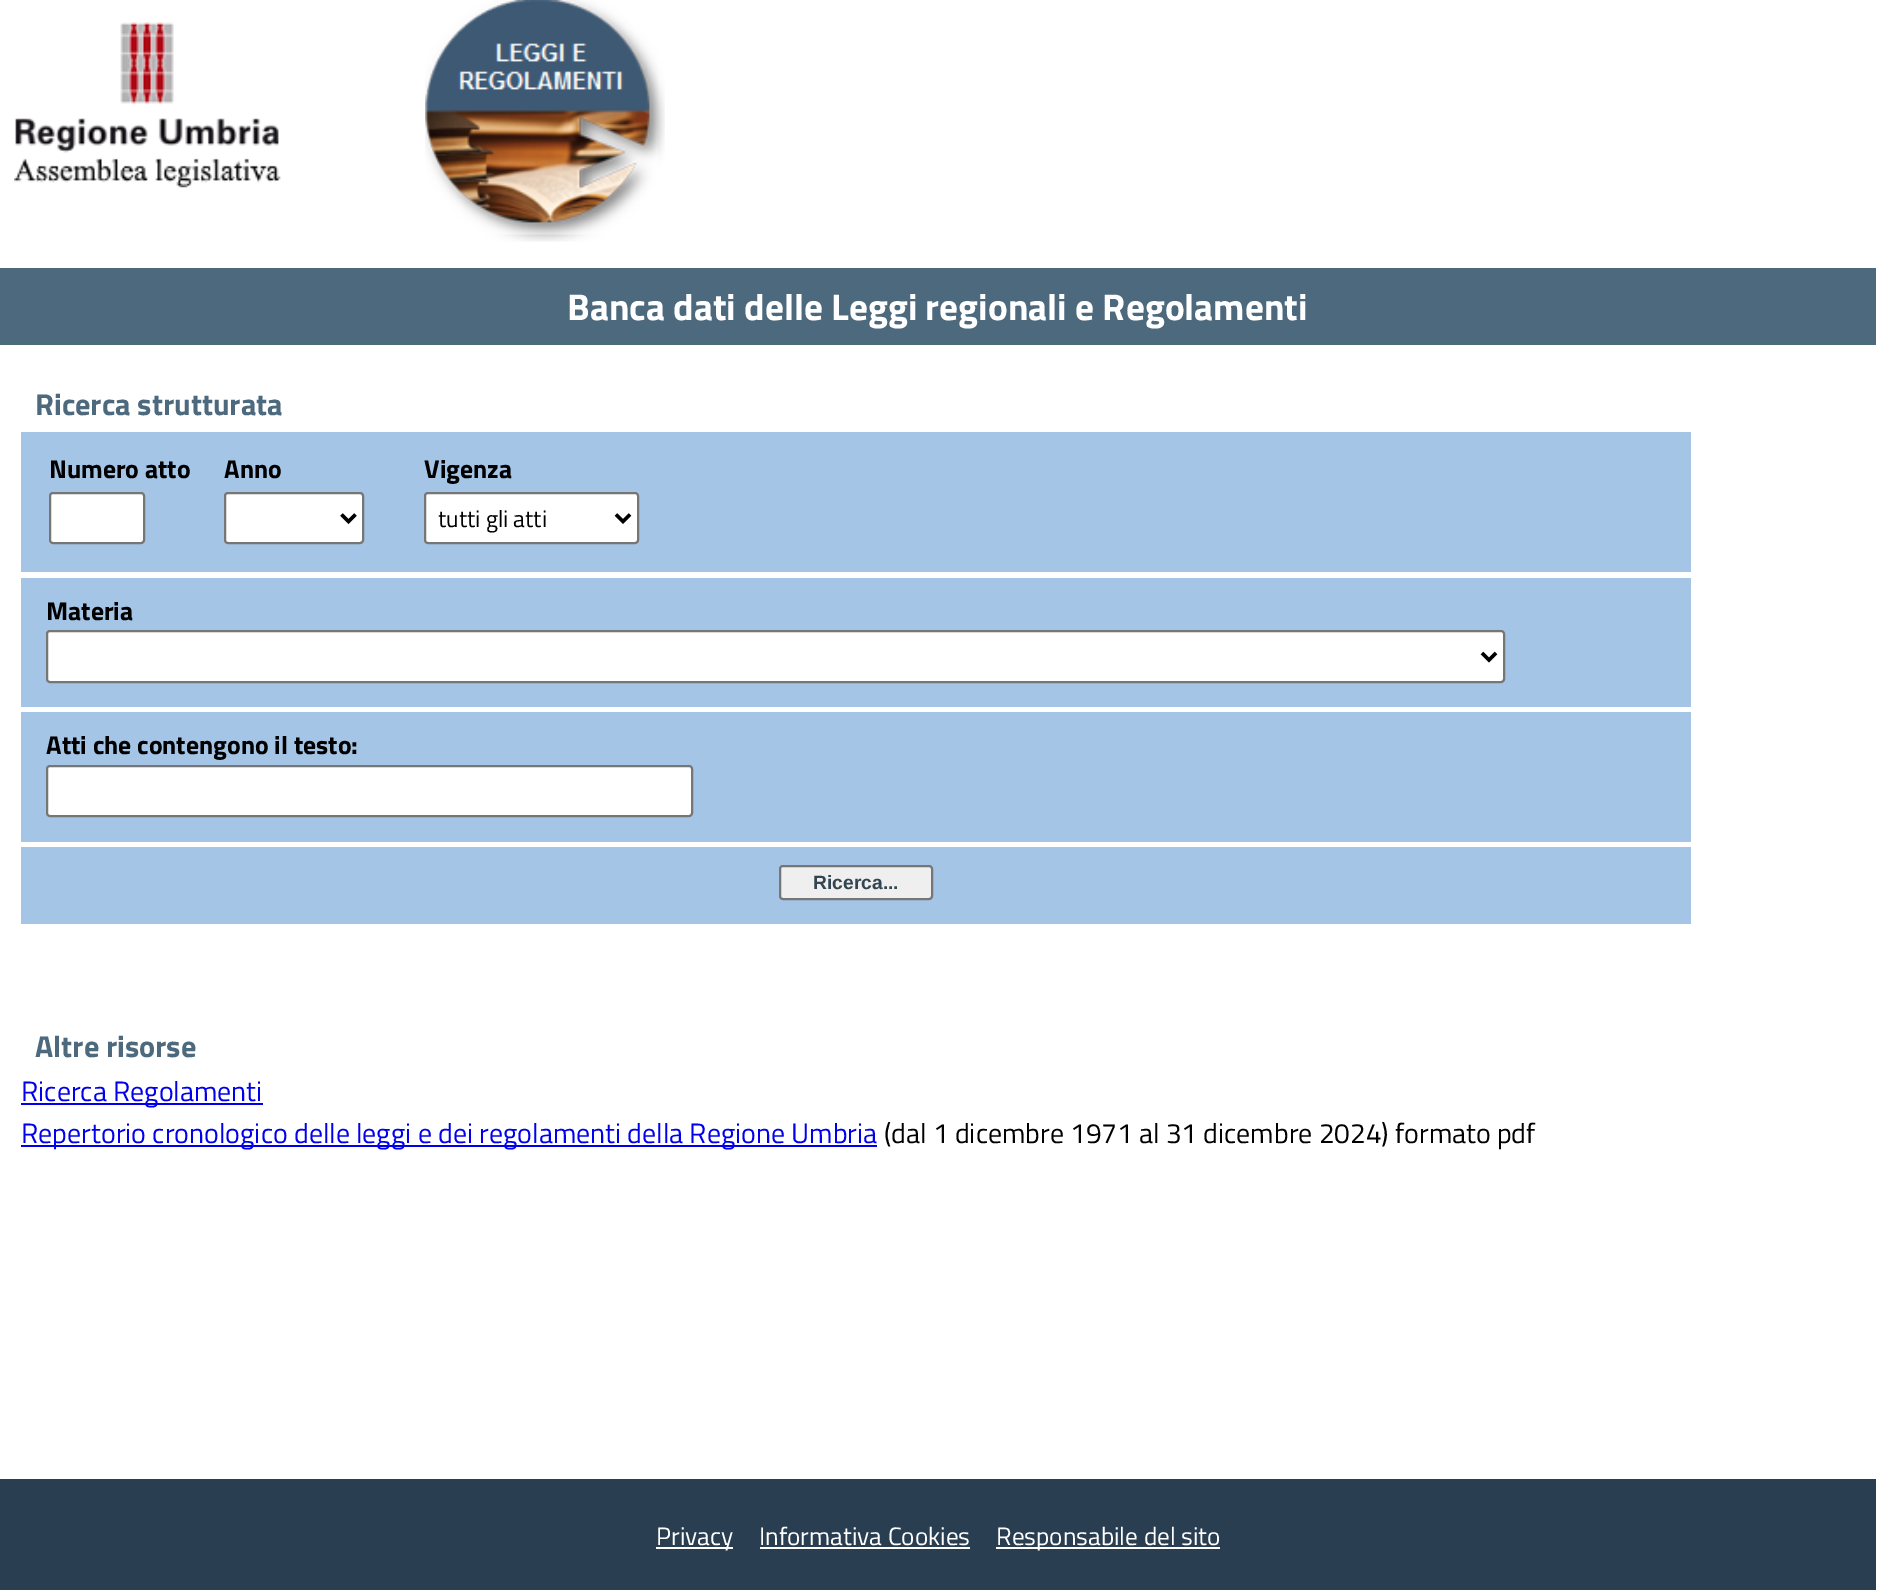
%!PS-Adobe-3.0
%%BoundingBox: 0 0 1902 1590
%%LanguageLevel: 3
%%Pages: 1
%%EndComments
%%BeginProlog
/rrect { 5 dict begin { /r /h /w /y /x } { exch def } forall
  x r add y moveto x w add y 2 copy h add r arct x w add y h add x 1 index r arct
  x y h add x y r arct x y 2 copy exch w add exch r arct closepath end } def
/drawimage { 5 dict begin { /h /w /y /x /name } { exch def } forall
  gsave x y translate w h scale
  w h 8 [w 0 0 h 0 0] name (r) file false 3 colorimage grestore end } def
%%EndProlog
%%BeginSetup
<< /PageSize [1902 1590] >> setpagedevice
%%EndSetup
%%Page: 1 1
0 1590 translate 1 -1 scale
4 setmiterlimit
1 setgray
0 0 1902 1590 rectfill
(images/1.raw) 14 22 267 166 drawimage
(images/2.raw) 425 0 240 242 drawimage
0.302 0.412 0.49 setrgbcolor
0 268 1876 77 rectfill
0.643 0.773 0.898 setrgbcolor
21 432 1670 140 rectfill
1 setgray
50 493 94 50 3 rrect gsave fill grestore
0.463 setgray
2 setlinewidth
stroke
1 setgray
225 493 138 50 3 rrect gsave fill grestore
0.463 setgray
stroke
0 setgray
3.5 setlinewidth
newpath 341.5 514.5 moveto 348.5 521.5 lineto 355.5 514.5 lineto stroke
1 setgray
425 493 213 50 3 rrect gsave fill grestore
0.463 setgray
2 setlinewidth
stroke
0 setgray
3.5 setlinewidth
newpath 616 514.5 moveto 623 521.5 lineto 630 514.5 lineto stroke
0.643 0.773 0.898 setrgbcolor
21 578 1670 129 rectfill
1 setgray
47 631 1457 51 3 rrect gsave fill grestore
0.463 setgray
2 setlinewidth
stroke
0 setgray
3.5 setlinewidth
newpath 1482 653 moveto 1489 660 lineto 1496 653 lineto stroke
0.643 0.773 0.898 setrgbcolor
21 712 1670 130 rectfill
1 setgray
47 766 645 50 3 rrect gsave fill grestore
0.463 setgray
2 setlinewidth
stroke
0.643 0.773 0.898 setrgbcolor
21 847 1670 77 rectfill
0.937 setgray
780 866 152 33 3 rrect gsave fill grestore
0.463 setgray
stroke
0 0 0.933 setrgbcolor
21 1103 242 2 rectfill
21 1145 856 2 rectfill
0.165 0.243 0.318 setrgbcolor
0 1479 1876 111 rectfill
1 setgray
656 1547 77 2 rectfill
760 1547 210 2 rectfill
996 1547 224 2 rectfill
/TitilliumWeb-Bold [37.3 0 0 -37.3 0 0] selectfont
567 320 moveto (Banca dati delle Leggi regionali e Regolamenti) show
/TitilliumWeb-Bold [30.25 0 0 -30.25 0 0] selectfont
0.302 0.412 0.49 setrgbcolor
35 415 moveto (Ricerca strutturata) show
/TitilliumWeb-Bold [25.75 0 0 -25.75 0 0] selectfont
0 setgray
49 478 moveto (Numero atto) show
224 478 moveto (Anno) show
424 478 moveto (Vigenza) show
/TitilliumWeb-Regular [23.5 0 0 -23.5 0 0] selectfont
438 527 moveto (tutti gli atti) show
/TitilliumWeb-Bold [25.75 0 0 -25.75 0 0] selectfont
46 620 moveto (Materia) show
46 754 moveto (Atti che contengono il testo:) show
/LiberationSans-Bold [19.25 0 0 -19.25 0 0] selectfont
0.2 0.271 0.318 setrgbcolor
813 889 moveto (Ricerca...) show
/TitilliumWeb-Bold [30.25 0 0 -30.25 0 0] selectfont
0.302 0.412 0.49 setrgbcolor
35 1057 moveto (Altre risorse) show
/TitilliumWeb-Regular [28 0 0 -28 0 0] selectfont
0 0 0.933 setrgbcolor
21 1101 moveto (Ricerca Regolamenti) show
21 1143 moveto (Repertorio cronologico delle leggi e dei regolamenti della Regione Umbria) show
0 setgray
884 1143 moveto (\(dal 1 dicembre 1971 al 31 dicembre 2024\) formato pdf) show
/TitilliumWeb-Regular [25.25 0 0 -25.25 0 0] selectfont
1 setgray
656 1545 moveto (Privacy) show
759 1545 moveto (Informativa Cookies) show
996 1545 moveto (Responsabile del sito) show
showpage
%%EOF
